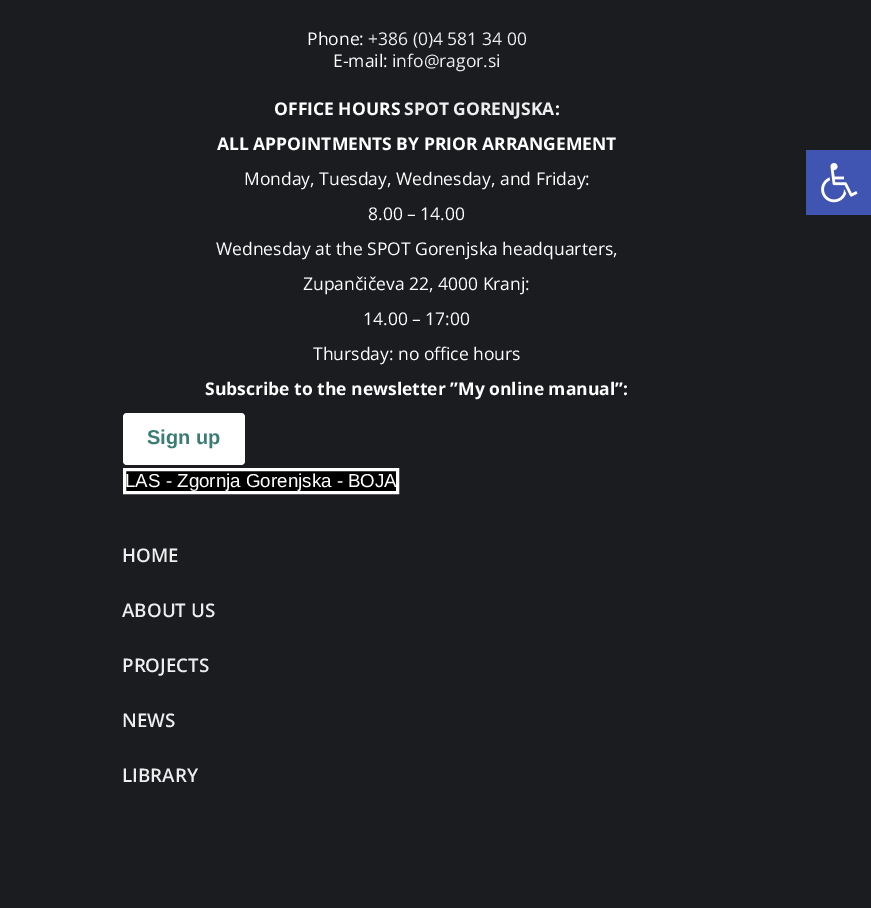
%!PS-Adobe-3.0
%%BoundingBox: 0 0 871 908
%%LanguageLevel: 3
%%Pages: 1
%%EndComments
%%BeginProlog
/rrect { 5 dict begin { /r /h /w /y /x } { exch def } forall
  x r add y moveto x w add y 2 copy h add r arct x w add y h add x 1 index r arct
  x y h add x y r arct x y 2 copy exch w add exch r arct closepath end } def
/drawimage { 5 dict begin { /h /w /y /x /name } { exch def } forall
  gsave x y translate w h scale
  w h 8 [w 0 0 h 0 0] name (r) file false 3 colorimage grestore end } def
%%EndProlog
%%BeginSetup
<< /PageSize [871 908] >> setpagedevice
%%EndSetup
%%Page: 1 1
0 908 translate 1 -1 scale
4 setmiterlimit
0.102 0.11 0.125 setrgbcolor
0 0 871 908 rectfill
1 setgray
123 413 122 52 4 rrect fill
0 setgray
newpath 124.5 469.5 moveto 397.5 469.5 lineto 397.5 492.5 lineto 124.5 492.5 lineto closepath gsave fill grestore
1 setgray
3 setlinewidth
stroke
0.251 0.329 0.698 setrgbcolor
806 150 65 65 rectfill
(images/1.raw) 821 163 37 40 drawimage
/OpenSans-Regular [17.5 0 0 -17.5 0 0] selectfont
1 setgray
307 45 moveto (Phone:) show
0.933 setgray
368 45 moveto (+386 \(0\)4 581 34 00) show
1 setgray
333 67 moveto (E-mail:) show
0.933 setgray
392 67 moveto (info@ragor.si) show
/OpenSans-Bold [17.5 0 0 -17.5 0 0] selectfont
1 setgray
274 115 moveto (OFFICE HOURS) show
0.933 setgray
404 115 moveto (SPOT GORENJSKA) show
1 setgray
555 115 moveto (:) show
217 150 moveto (ALL APPOINTMENTS BY PRIOR ARRANGEMENT) show
/OpenSans-Regular [17.5 0 0 -17.5 0 0] selectfont
244 185 moveto (Monday, Tuesday, Wednesday, and Friday:) show
368 220 moveto (8.00 – 14.00) show
216 255 moveto (Wednesday at the SPOT Gorenjska headquarters,) show
303 290 moveto (Zupančičeva 22, 4000 Kranj:) show
363 325 moveto (14.00 – 17:00) show
313 360 moveto (Thursday: no office hours) show
/OpenSans-Bold [17.5 0 0 -17.5 0 0] selectfont
205 395 moveto (Subscribe to the newsletter ”My online manual”:) show
/LiberationSans-Bold [20 0 0 -20 0 0] selectfont
0.231 0.49 0.455 setrgbcolor
147 444 moveto (Sign up) show
/LiberationSans-Regular [18.75 0 0 -18.75 0 0] selectfont
1 setgray
125 487 moveto (LAS - Zgornja Gorenjska - BOJA) show
/OpenSans-SemiBold [18.75 0 0 -18.75 0 0] selectfont
0.933 setgray
122 562 moveto (HOME) show
122 617 moveto (ABOUT US) show
122 672 moveto (PROJECTS) show
122 727 moveto (NEWS) show
122 782 moveto (LIBRARY) show
showpage
%%EOF
